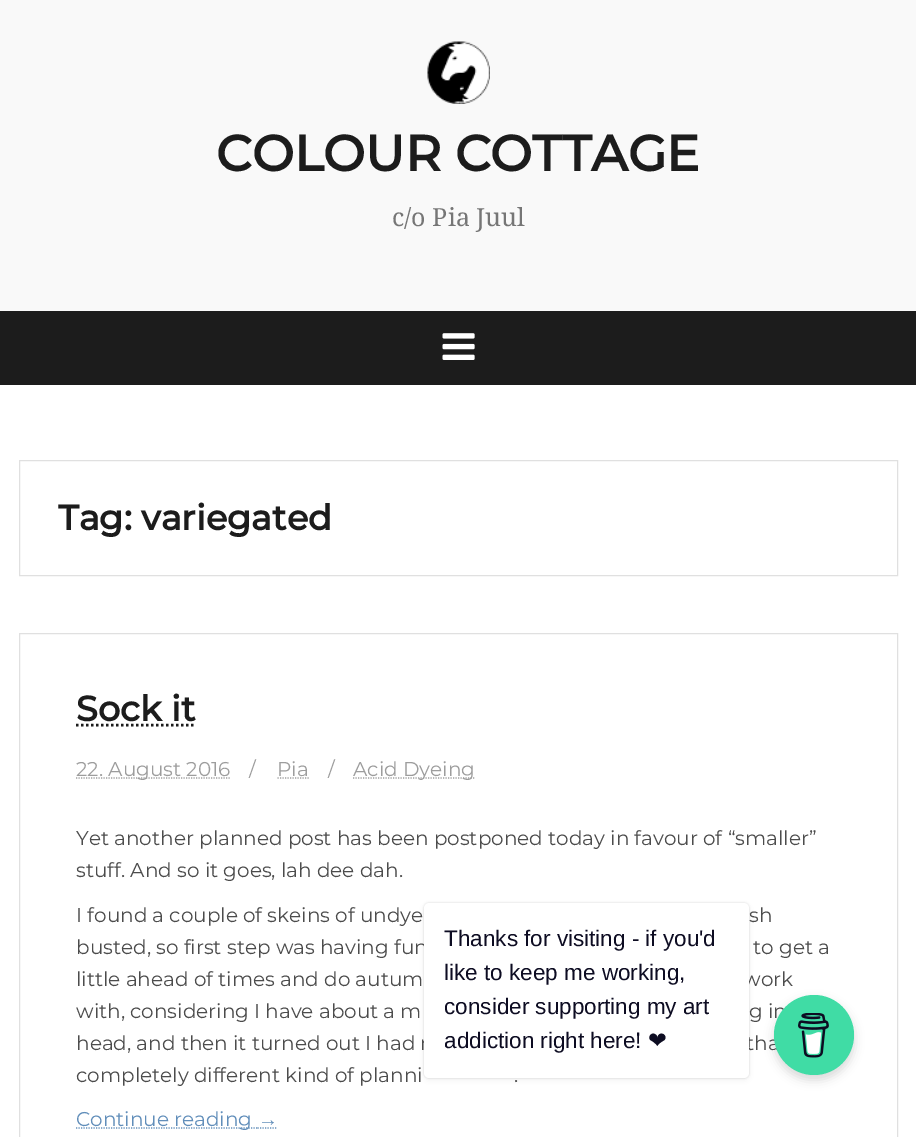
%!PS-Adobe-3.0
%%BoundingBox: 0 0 916 1137
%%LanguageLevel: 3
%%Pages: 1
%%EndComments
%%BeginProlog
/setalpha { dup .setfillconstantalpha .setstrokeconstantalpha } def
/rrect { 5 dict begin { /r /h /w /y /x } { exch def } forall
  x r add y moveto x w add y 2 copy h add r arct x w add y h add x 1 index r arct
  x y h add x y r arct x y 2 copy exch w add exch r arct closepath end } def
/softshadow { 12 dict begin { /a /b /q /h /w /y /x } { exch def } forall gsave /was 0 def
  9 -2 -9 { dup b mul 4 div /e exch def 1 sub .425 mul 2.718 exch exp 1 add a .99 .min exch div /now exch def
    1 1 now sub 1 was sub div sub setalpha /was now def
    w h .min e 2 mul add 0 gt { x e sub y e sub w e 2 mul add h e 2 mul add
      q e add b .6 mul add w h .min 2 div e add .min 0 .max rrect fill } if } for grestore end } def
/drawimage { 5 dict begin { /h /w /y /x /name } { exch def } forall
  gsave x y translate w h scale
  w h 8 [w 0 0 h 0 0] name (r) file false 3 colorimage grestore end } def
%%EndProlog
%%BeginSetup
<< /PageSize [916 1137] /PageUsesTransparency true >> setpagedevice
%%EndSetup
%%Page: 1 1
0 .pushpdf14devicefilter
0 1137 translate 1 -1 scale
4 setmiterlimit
1 setgray
0 0 916 1137 rectfill
0.976 setgray
0 0 916 311 rectfill
(images/1.raw) 427 41 63 63 drawimage
0.11 setgray
0 311 916 74 rectfill
(images/2.raw) 442 333 33 27 drawimage
0.878 setgray
19.5 460.5 878 115 rectstroke
19.5 633.5 878 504 rectstroke
0.11 setgray
2.5 setlinewidth
[2.5 2.5] 0 setdash
newpath 76 725 moveto 195.5 725 lineto stroke
0.616 setgray
1.2 setlinewidth
[1.25 1.25] 0 setdash
newpath 76 778 moveto 230.5 778 lineto stroke
newpath 277.5 778 moveto 309 778 lineto stroke
newpath 353 778 moveto 475 778 lineto stroke
0.38 0.557 0.729 setrgbcolor
newpath 76 1128 moveto 257.5 1128 lineto stroke
newpath 257.5 1128 moveto 277.5 1128 lineto stroke
0 setgray
424 903 325 175 5 1 0.15 softshadow
424 905 325 175 5 3 0.05 softshadow
774 1000 80 80 40 5 0.15 softshadow
/Montserrat-Bold [50 0 0 -50 0 0] selectfont
0.11 setgray
216 171 moveto (COLOUR COTTAGE) show
/NotoSerif-Regular [25 0 0 -25 0 0] selectfont
0.463 setgray
392 226 moveto (c/o Pia Juul) show
/Montserrat-Bold [35 0 0 -35 0 0] selectfont
0.11 setgray
58 530 moveto (Tag: variegated) show
76 721 moveto (Sock it) show
/Montserrat-Regular [20 0 0 -20 0 0] selectfont
0.616 setgray
76 776 moveto (22. August 2016) show
249 776 moveto (/) show
277 776 moveto (Pia) show
328 776 moveto (/) show
353 776 moveto (Acid Dyeing) show
0.298 setgray
76 845 moveto (Yet another planned post has been postponed today in favour of “smaller”) show
76 877 moveto (stuff. And so it goes, lah dee dah.) show
76 922 moveto (I found a couple of skeins of undye) show
749 922 moveto (sh) show
76 954 moveto (busted, so first step was having fun) show
753 954 moveto (to get a) show
76 986 moveto (little ahead of times and do autum) show
743 986 moveto (work) show
76 1018 moveto (with, considering I have about a m) show
749 1018 moveto (g in) show
76 1050 moveto (head, and then it turned out I had r) show
746 1050 moveto (tha) show
76 1082 moveto (completely different kind of planni) show
514 1082 moveto (.) show
0.38 0.557 0.729 setrgbcolor
76 1126 moveto (Continue reading) show
/LiberationSans-Regular [20 0 0 -20 0 0] selectfont
258 1126 moveto (→) show
1 setgray
424 903 325 175 5 rrect fill
/LiberationSans-Regular [22.5 0 0 -22.5 0 0] selectfont
0.051 0.047 0.133 setrgbcolor
444 946 moveto (Thanks for visiting - if you'd) show
444 980 moveto (like to keep me working,) show
444 1014 moveto (consider supporting my art) show
444 1048 moveto (addiction right here!) show
/DejaVuSans-Regular [22.5 0 0 -22.5 0 0] selectfont
648 1048 moveto (❤) show
0.251 0.863 0.647 setrgbcolor
newpath 814 1035 40 0 360 arc closepath fill
(images/3.raw) 798 1013 31 45 drawimage
.poppdf14devicefilter showpage
%%EOF
